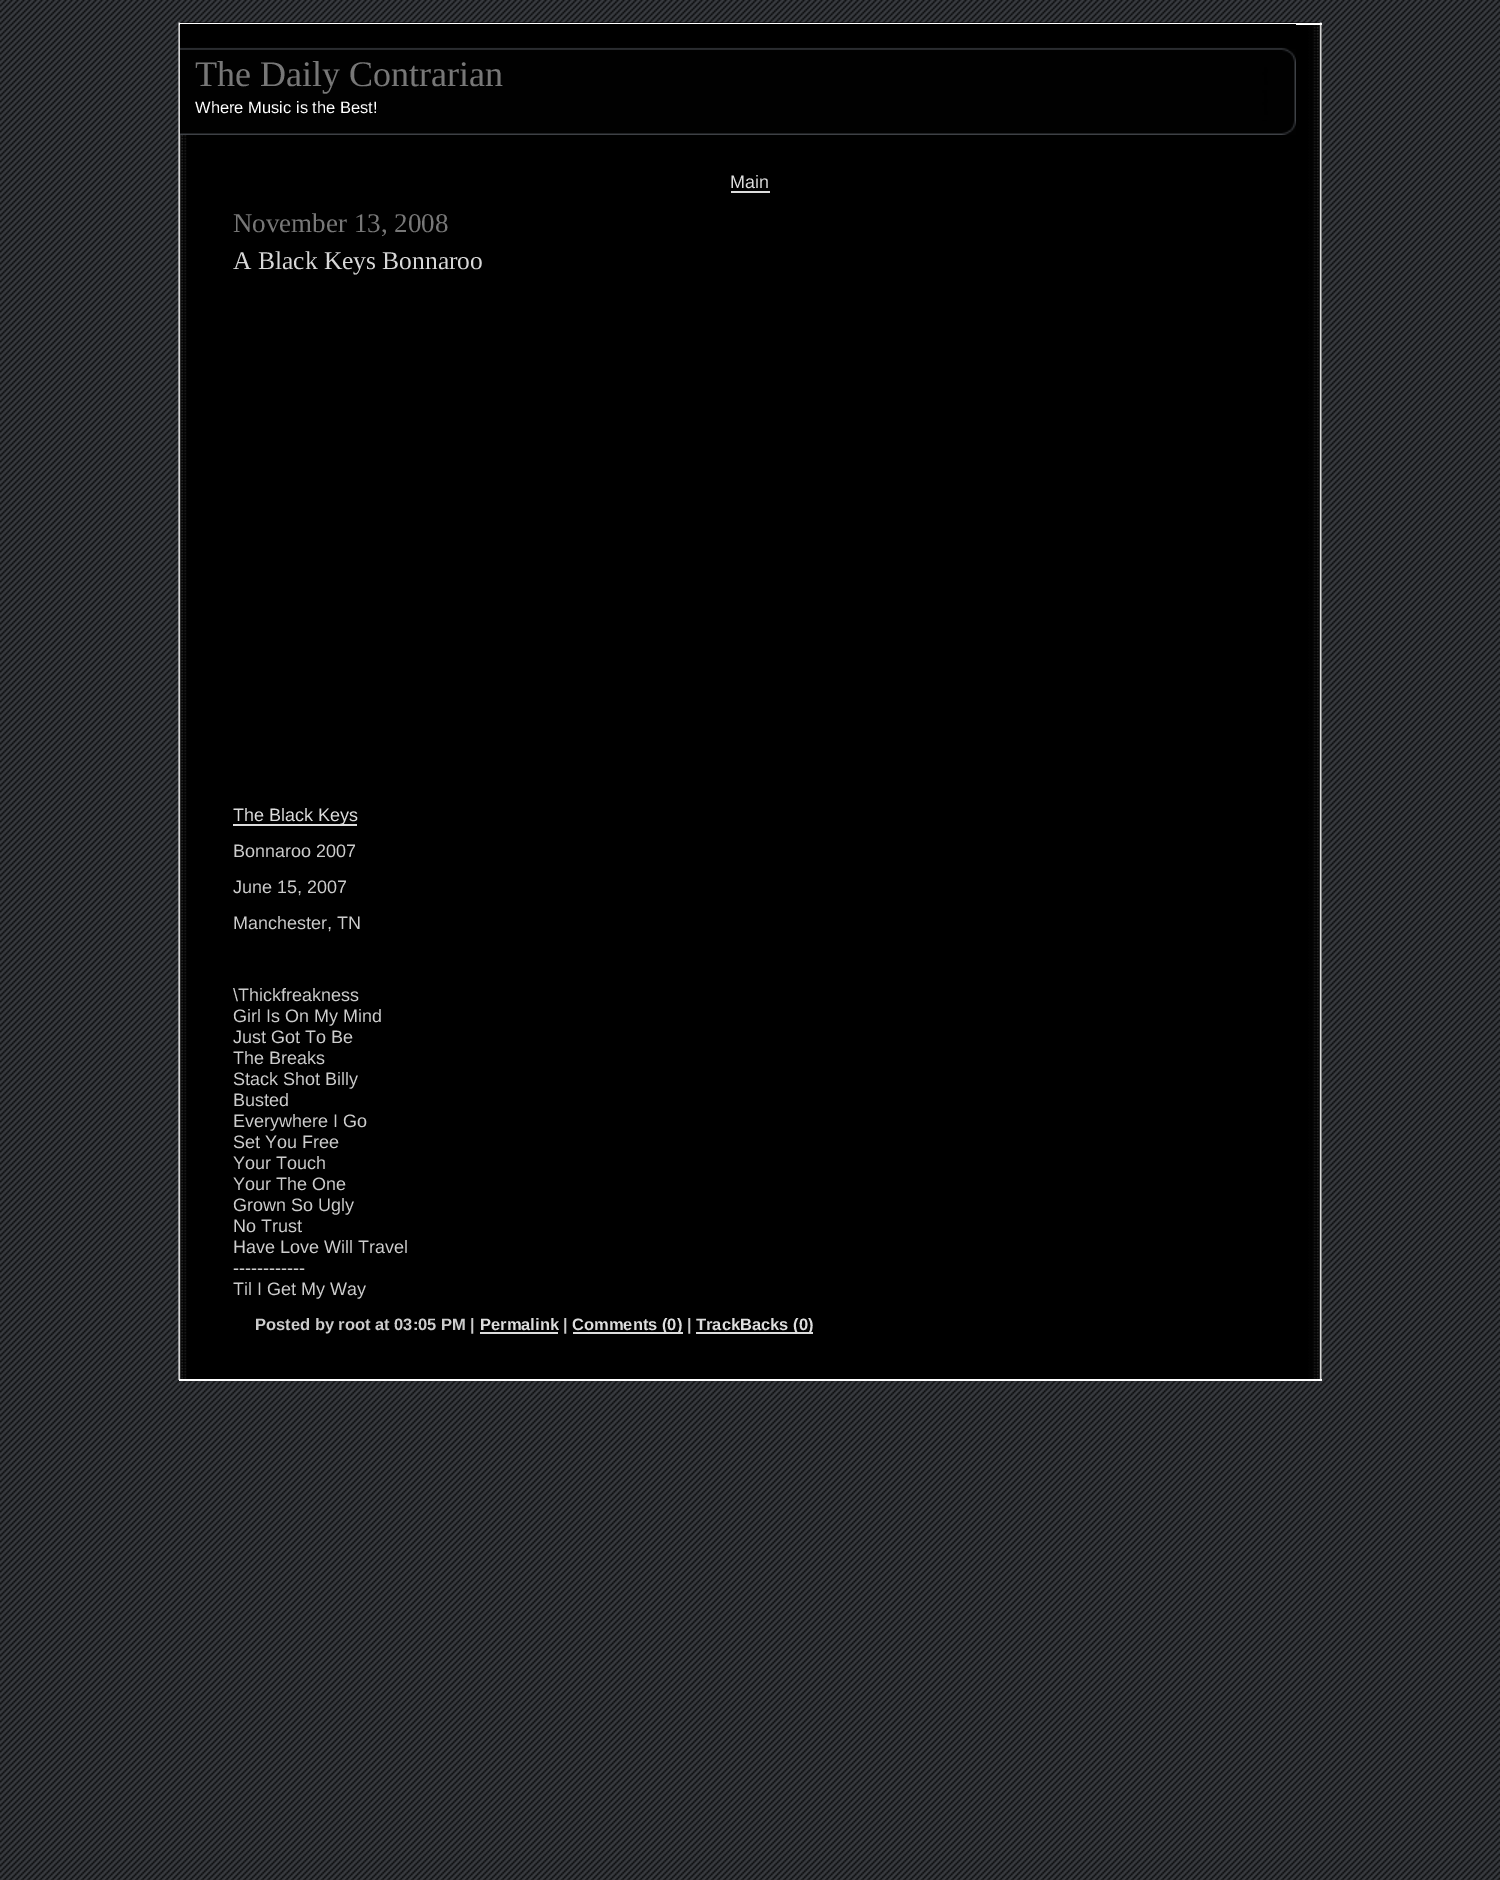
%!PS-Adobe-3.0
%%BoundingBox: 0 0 1500 1880
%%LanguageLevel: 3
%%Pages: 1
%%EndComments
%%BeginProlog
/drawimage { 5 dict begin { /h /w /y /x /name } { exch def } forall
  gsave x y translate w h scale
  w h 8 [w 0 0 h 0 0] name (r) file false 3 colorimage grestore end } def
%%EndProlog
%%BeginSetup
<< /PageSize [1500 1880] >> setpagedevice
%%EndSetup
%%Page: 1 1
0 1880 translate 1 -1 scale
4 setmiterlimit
1 setgray
0 0 1500 1880 rectfill
(images/1.raw) 0 0 1500 1880 drawimage
0 setgray
1321 25 1 1354 rectfill
(images/2.raw) 178 22 1144 1358 drawimage
1 setgray
179 23 1143 2 rectfill
179 1379 1143 2 rectfill
(images/3.raw) 180 24 1116 97 drawimage
(images/4.raw) 180 121 1116 14 drawimage
0.867 setgray
731 191 39 2 rectfill
233 824 124 2 rectfill
480 1332 78 2 rectfill
573 1332 110 2 rectfill
696 1332 117 2 rectfill
/LiberationSerif-Regular [36 0 0 -36 0 0] selectfont
0.467 setgray
195 86 moveto (The Daily Contrarian) show
/LiberationSans-Regular [16.5 0 0 -16.5 0 0] selectfont
1 setgray
195 113 moveto (Where Music is the Best!) show
/LiberationSans-Regular [18 0 0 -18 0 0] selectfont
0.867 setgray
730 188 moveto (Main) show
/LiberationSerif-Regular [27 0 0 -27 0 0] selectfont
0.467 setgray
233 232 moveto (November 13, 2008) show
/LiberationSerif-Regular [25.5 0 0 -25.5 0 0] selectfont
0.843 setgray
233 269 moveto (A Black Keys Bonnaroo) show
/LiberationSans-Regular [18 0 0 -18 0 0] selectfont
0.867 setgray
233 821 moveto (The Black Keys) show
0.8 setgray
233 857 moveto (Bonnaroo 2007) show
233 893 moveto (June 15, 2007) show
233 929 moveto (Manchester, TN) show
233 1001 moveto (\\Thickfreakness) show
233 1022 moveto (Girl Is On My Mind) show
233 1043 moveto (Just Got To Be) show
233 1064 moveto (The Breaks) show
233 1085 moveto (Stack Shot Billy) show
233 1106 moveto (Busted) show
233 1127 moveto (Everywhere I Go) show
233 1148 moveto (Set You Free) show
233 1169 moveto (Your Touch) show
233 1190 moveto (Your The One) show
233 1211 moveto (Grown So Ugly) show
233 1232 moveto (No Trust) show
233 1253 moveto (Have Love Will Travel) show
233 1274 moveto (------------) show
233 1295 moveto (Til I Get My Way) show
/LiberationSans-Bold [16.5 0 0 -16.5 0 0] selectfont
255 1330 moveto (Posted by root at 03:05 PM |) show
0.867 setgray
480 1330 moveto (Permalink) show
0.8 setgray
563 1330 moveto (|) show
0.867 setgray
572 1330 moveto (Comments \(0\)) show
0.8 setgray
687 1330 moveto (|) show
0.867 setgray
696 1330 moveto (TrackBacks \(0\)) show
showpage
%%EOF
